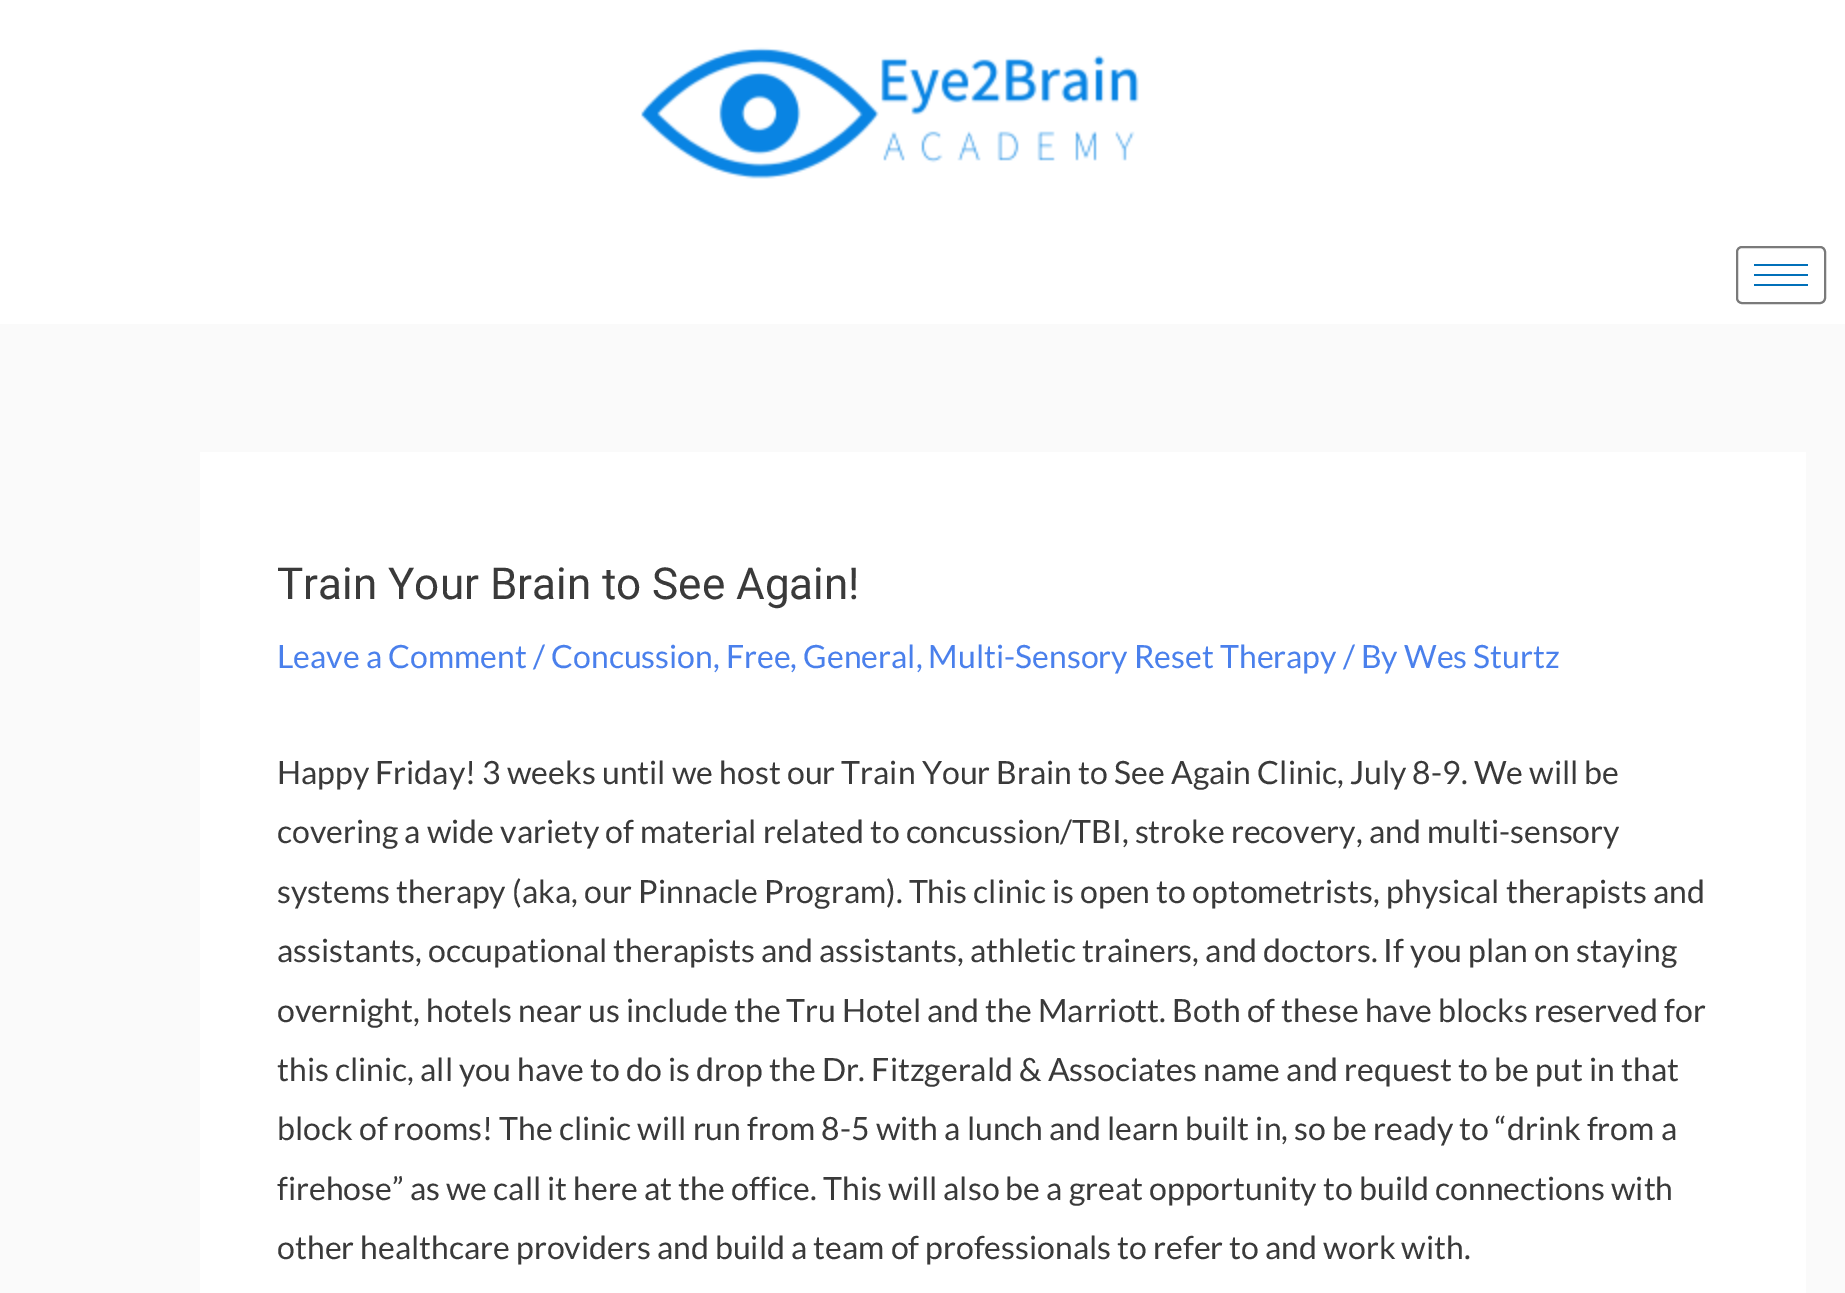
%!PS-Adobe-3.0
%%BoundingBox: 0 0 1845 1293
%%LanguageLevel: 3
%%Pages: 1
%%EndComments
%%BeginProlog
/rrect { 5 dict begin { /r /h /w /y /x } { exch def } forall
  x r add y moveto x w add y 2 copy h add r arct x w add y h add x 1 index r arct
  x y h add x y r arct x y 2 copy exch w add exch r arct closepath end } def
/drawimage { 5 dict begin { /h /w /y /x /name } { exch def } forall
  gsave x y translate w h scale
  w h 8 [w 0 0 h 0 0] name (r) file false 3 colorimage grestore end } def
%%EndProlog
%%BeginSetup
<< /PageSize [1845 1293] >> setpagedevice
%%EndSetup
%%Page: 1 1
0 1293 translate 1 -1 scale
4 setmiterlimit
0.98 setgray
0 0 1845 1293 rectfill
1 setgray
0 0 1845 324 rectfill
(images/1.raw) 641 47 498 132 drawimage
0.478 setgray
2 setlinewidth
1737 247 88 56 5 rrect stroke
0.004 0.439 0.725 setrgbcolor
1754 264 54 2 rectfill
1754 274 54 2 rectfill
1754 284 54 2 rectfill
1 setgray
200 452 1606 841 rectfill
/Roboto-Regular [44 0 0 -44 0 0] selectfont
0.227 setgray
277 599 moveto (Train Your Brain to See Again!) show
/Lato-Regular [32 0 0 -32 0 0] selectfont
0.29 0.502 0.925 setrgbcolor
277 668 moveto (Leave a Comment / Concussion, Free, General, Multi-Sensory Reset Therapy / By Wes Sturtz) show
0.227 setgray
277 784 moveto (Happy Friday! 3 weeks until we host our Train Your Brain to See Again Clinic, July 8-9. We will be) show
277 843 moveto (covering a wide variety of material related to concussion/TBI, stroke recovery, and multi-sensory) show
277 903 moveto (systems therapy \(aka, our Pinnacle Program\). This clinic is open to optometrists, physical therapists and) show
277 962 moveto (assistants, occupational therapists and assistants, athletic trainers, and doctors. If you plan on staying) show
277 1022 moveto (overnight, hotels near us include the Tru Hotel and the Marriott. Both of these have blocks reserved for) show
277 1081 moveto (this clinic, all you have to do is drop the Dr. Fitzgerald & Associates name and request to be put in that) show
277 1140 moveto (block of rooms! The clinic will run from 8-5 with a lunch and learn built in, so be ready to “drink from a) show
277 1200 moveto (firehose” as we call it here at the office. This will also be a great opportunity to build connections with) show
277 1259 moveto (other healthcare providers and build a team of professionals to refer to and work with.) show
showpage
%%EOF
